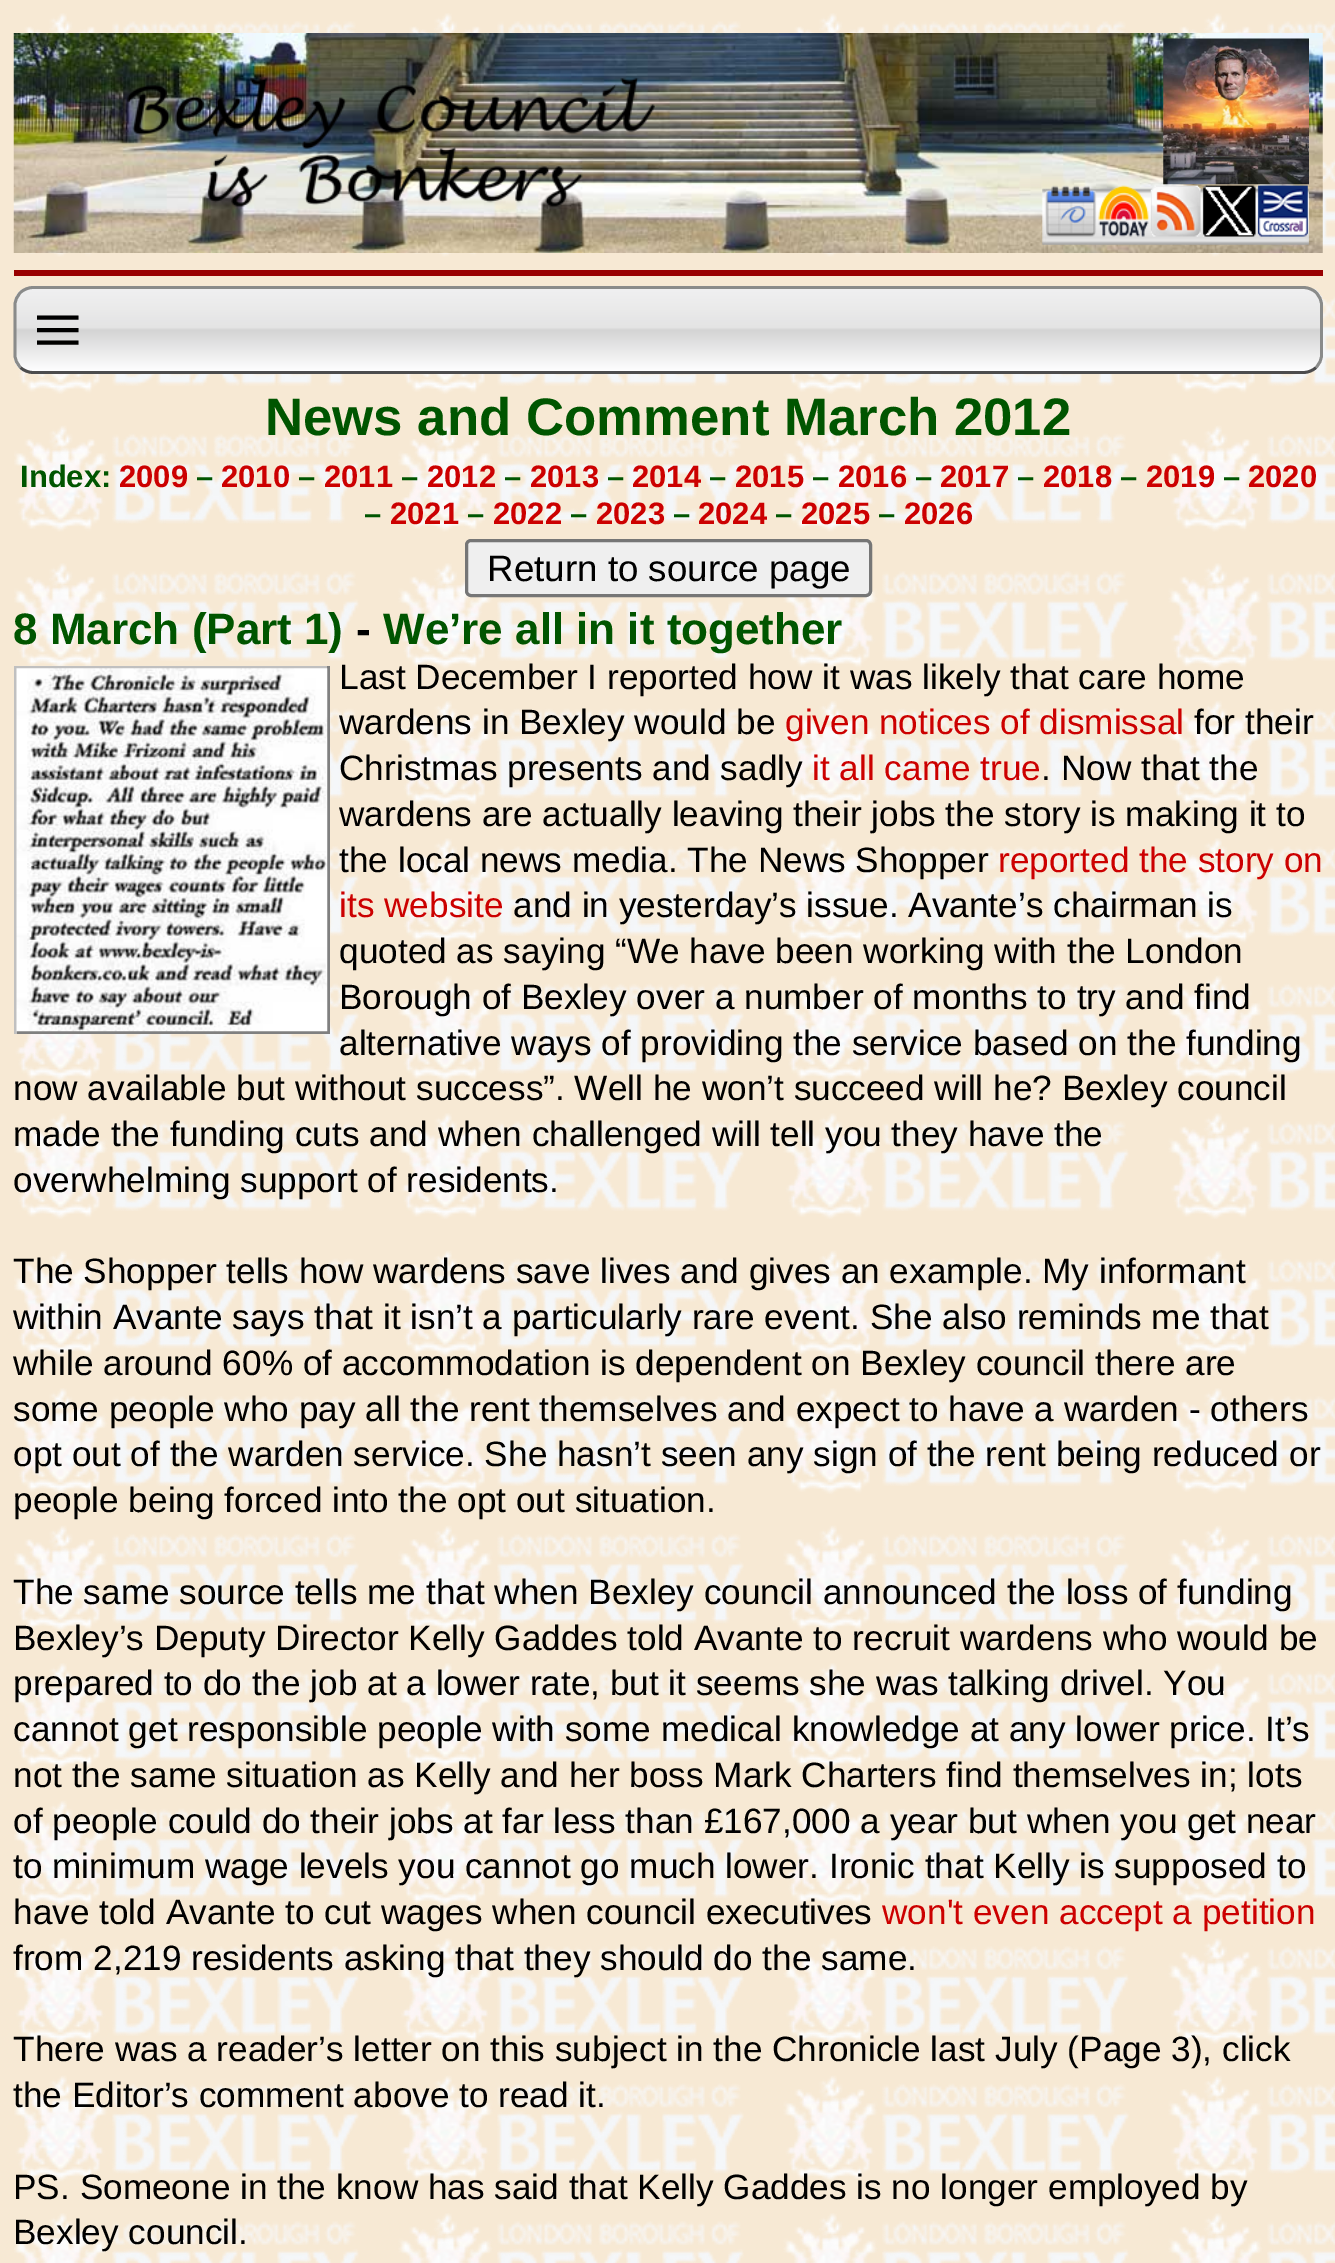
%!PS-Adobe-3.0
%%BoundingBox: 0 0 1335 2263
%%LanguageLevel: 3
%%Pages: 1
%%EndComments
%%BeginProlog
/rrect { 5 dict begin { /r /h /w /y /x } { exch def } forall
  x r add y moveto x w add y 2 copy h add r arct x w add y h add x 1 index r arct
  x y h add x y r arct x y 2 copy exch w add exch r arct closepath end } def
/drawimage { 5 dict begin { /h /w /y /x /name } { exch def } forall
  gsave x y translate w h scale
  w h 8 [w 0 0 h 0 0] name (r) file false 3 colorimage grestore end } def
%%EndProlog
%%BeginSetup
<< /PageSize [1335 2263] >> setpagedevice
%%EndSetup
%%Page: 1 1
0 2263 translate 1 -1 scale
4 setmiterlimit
0.969 0.914 0.831 setrgbcolor
0 0 1335 2263 rectfill
(images/1.raw) 14 13 1321 2250 drawimage
(images/2.raw) 13 33 1310 220 drawimage
(images/3.raw) 127 78 528 129 drawimage
(images/10.raw) 1042 188 267 57 drawimage
(images/4.raw) 1044 185 53 52 drawimage
(images/5.raw) 1098 185 51 52 drawimage
(images/6.raw) 1163 38 146 147 drawimage
(images/7.raw) 1150 185 51 52 drawimage
(images/8.raw) 1202 185 54 52 drawimage
(images/9.raw) 1257 185 51 52 drawimage
0.6 0 0 setrgbcolor
14 270 1309 6 rectfill
gsave
14 286 1309 88 19 rrect clip newpath
gsave newpath 14 289 moveto 1323 289 lineto 1323 371 lineto 14 371 lineto closepath clip newpath
<< /ShadingType 2 /ColorSpace /DeviceRGB /Coords [668 289 668 371] /Extend [true true] /Function << /FunctionType 3 /Domain [0 1] /Functions [<< /FunctionType 2 /Domain [0 1] /C0 [0.941 0.941 0.945] /C1 [0.894 0.894 0.894] /N 1 >> << /FunctionType 2 /Domain [0 1] /C0 [0.894 0.894 0.894] /C1 [0.831 0.831 0.831] /N 1 >> << /FunctionType 2 /Domain [0 1] /C0 [0.831 0.831 0.831] /C1 [0.996 0.996 1] /N 1 >>] /Bounds [0.47 0.5] /Encode [0 1 0 1 0 1] >> >> shfill grestore
grestore
0.298 0.298 0.302 setrgbcolor
2.8 setlinewidth
newpath 1316 367.5 moveto 1313 370.5 1308 372.5 1303.5 372.5 curveto 33 372.5 lineto 28.5 372.5 23.5 370.5 20.5 367.5 curveto stroke
0.541 0.545 0.541 setrgbcolor
newpath 20.5 367.5 moveto 17 364 15 359.5 15 355 curveto 15 305 lineto 15 300.5 17 296 20.5 292.5 curveto 23.5 289.5 28.5 287.5 33 287.5 curveto 1303.5 287.5 lineto 1308 287.5 1313 289.5 1316 292.5 curveto 1319.5 296 1321.5 300.5 1321.5 305 curveto 1321.5 355 lineto 1321.5 359.5 1319.5 364 1316 367.5 curveto stroke
0 setgray
4.1 setlinewidth
newpath 37 342.5 moveto 78.5 342.5 lineto 37 317.5 moveto 78.5 317.5 lineto 37 330 moveto 78.5 330 lineto stroke
0.937 setgray
466.5 540.5 404 55 4.5 rrect gsave fill grestore
0.463 setgray
3 setlinewidth
stroke
0.753 setgray
14 666 316 3 rectfill
0.502 setgray
327 666 3 368 rectfill
14 1031 316 3 rectfill
0.753 setgray
14 666 3 368 rectfill
(images/11.raw) 16 668 312 364 drawimage
/LiberationSans-Bold [52.75 0 0 -52.75 0 0] selectfont
0 0.333 0 setrgbcolor
265 435 moveto (News and Comment March 2012) show
/LiberationSans-Bold [31 0 0 -31 0 0] selectfont
20 487 moveto (Index:) show
0.8 0 0 setrgbcolor
119 487 moveto (2009) show
0 0.333 0 setrgbcolor
196 487 moveto (–) show
0.8 0 0 setrgbcolor
221 487 moveto (2010) show
0 0.333 0 setrgbcolor
298 487 moveto (–) show
0.8 0 0 setrgbcolor
324 487 moveto (2011) show
0 0.333 0 setrgbcolor
401 487 moveto (–) show
0.8 0 0 setrgbcolor
427 487 moveto (2012) show
0 0.333 0 setrgbcolor
504 487 moveto (–) show
0.8 0 0 setrgbcolor
530 487 moveto (2013) show
0 0.333 0 setrgbcolor
607 487 moveto (–) show
0.8 0 0 setrgbcolor
632 487 moveto (2014) show
0 0.333 0 setrgbcolor
709 487 moveto (–) show
0.8 0 0 setrgbcolor
735 487 moveto (2015) show
0 0.333 0 setrgbcolor
812 487 moveto (–) show
0.8 0 0 setrgbcolor
838 487 moveto (2016) show
0 0.333 0 setrgbcolor
915 487 moveto (–) show
0.8 0 0 setrgbcolor
940 487 moveto (2017) show
0 0.333 0 setrgbcolor
1017 487 moveto (–) show
0.8 0 0 setrgbcolor
1043 487 moveto (2018) show
0 0.333 0 setrgbcolor
1120 487 moveto (–) show
0.8 0 0 setrgbcolor
1146 487 moveto (2019) show
0 0.333 0 setrgbcolor
1223 487 moveto (–) show
0.8 0 0 setrgbcolor
1248 487 moveto (2020) show
0 0.333 0 setrgbcolor
364 524 moveto (–) show
0.8 0 0 setrgbcolor
390 524 moveto (2021) show
0 0.333 0 setrgbcolor
467 524 moveto (–) show
0.8 0 0 setrgbcolor
493 524 moveto (2022) show
0 0.333 0 setrgbcolor
570 524 moveto (–) show
0.8 0 0 setrgbcolor
596 524 moveto (2023) show
0 0.333 0 setrgbcolor
673 524 moveto (–) show
0.8 0 0 setrgbcolor
698 524 moveto (2024) show
0 0.333 0 setrgbcolor
775 524 moveto (–) show
0.8 0 0 setrgbcolor
801 524 moveto (2025) show
0 0.333 0 setrgbcolor
878 524 moveto (–) show
0.8 0 0 setrgbcolor
904 524 moveto (2026) show
/LiberationSans-Regular [36.75 0 0 -36.75 0 0] selectfont
0 setgray
487 581 moveto (Return to source page) show
/LiberationSans-Bold [44 0 0 -44 0 0] selectfont
0 0.333 0 setrgbcolor
13 644 moveto (8 March \(Part 1\)) show
0 setgray
356 644 moveto (-) show
0 0.333 0 setrgbcolor
383 644 moveto (We’re all in it together) show
/LiberationSans-Regular [35.2 0 0 -35.2 0 0] selectfont
0 setgray
339 689 moveto (Last December I reported how it was likely that care home) show
339 734 moveto (wardens in Bexley would be) show
0.8 0 0 setrgbcolor
785 734 moveto (given notices of dismissal) show
0 setgray
1194 734 moveto (for their) show
339 780 moveto (Christmas presents and sadly) show
0.8 0 0 setrgbcolor
812 780 moveto (it all came true) show
0 setgray
1041 780 moveto (. Now that the) show
339 826 moveto (wardens are actually leaving their jobs the story is making it to) show
339 872 moveto (the local news media. The News Shopper) show
0.8 0 0 setrgbcolor
998 872 moveto (reported the story on) show
339 917 moveto (its website) show
0 setgray
513 917 moveto (and in yesterday’s issue. Avante’s chairman is) show
339 963 moveto (quoted as saying “We have been working with the London) show
339 1009 moveto (Borough of Bexley over a number of months to try and find) show
339 1055 moveto (alternative ways of providing the service based on the funding) show
13 1100 moveto (now available but without success”. Well he won’t succeed will he? Bexley) show
1177 1100 moveto (council) show
13 1146 moveto (made the funding cuts and when challenged will tell you they have the) show
13 1192 moveto (overwhelming support of residents.) show
13 1283 moveto (The Shopper tells how wardens save lives and gives an example. My informant) show
13 1329 moveto (within Avante says that it isn’t a particularly rare event. She also reminds me) show
1210 1329 moveto (that) show
13 1375 moveto (while around 60% of accommodation is dependent on Bexley council there are) show
13 1421 moveto (some people who pay all the rent themselves and expect to have a warden - others) show
13 1466 moveto (opt out of the warden service. She hasn’t seen any sign of the rent being reduced) show
1289 1466 moveto (or) show
13 1512 moveto (people being forced into the opt out situation.) show
13 1604 moveto (The same source tells me that when Bexley council announced the loss of funding) show
13 1650 moveto (Bexley’s Deputy Director Kelly Gaddes told Avante to recruit wardens who would be) show
13 1695 moveto (prepared to do the job at a lower rate, but it seems she was talking drivel. You) show
13 1741 moveto (cannot get responsible people with some medical knowledge at any lower price. It’s) show
13 1787 moveto (not the same situation as Kelly and her boss Mark Charters find themselves in; lots) show
13 1833 moveto (of people could do their jobs at far less than £167,000 a year but when you get near) show
13 1878 moveto (to minimum wage levels you cannot go much lower. Ironic that Kelly is supposed to) show
13 1924 moveto (have told Avante to cut wages when council executives) show
0.8 0 0 setrgbcolor
882 1924 moveto (won't even accept a petition) show
0 setgray
13 1970 moveto (from 2,219 residents asking that they should do the same.) show
13 2061 moveto (There was a reader’s letter on this subject in the Chronicle last July \(Page 3\), click) show
13 2107 moveto (the Editor’s comment above to read it.) show
13 2199 moveto (PS. Someone in the know has said that Kelly Gaddes is no longer employed by) show
13 2244 moveto (Bexley council.) show
showpage
%%EOF
